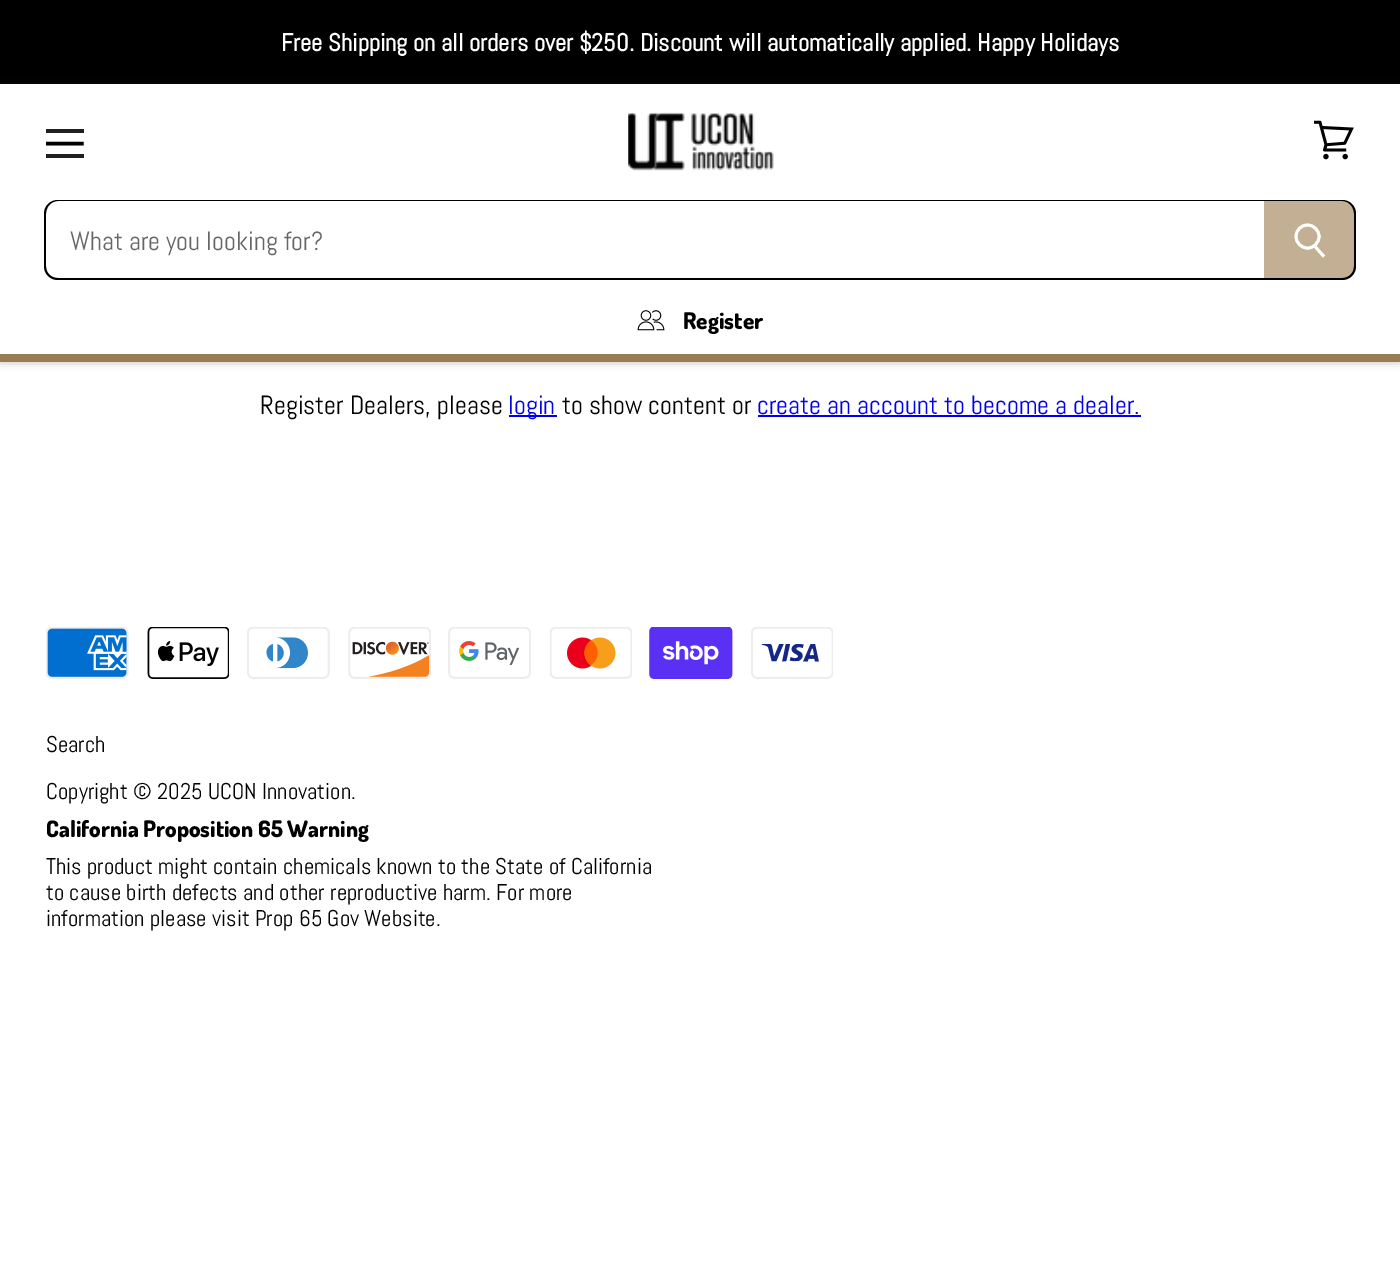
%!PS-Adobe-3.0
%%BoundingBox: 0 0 1400 1285
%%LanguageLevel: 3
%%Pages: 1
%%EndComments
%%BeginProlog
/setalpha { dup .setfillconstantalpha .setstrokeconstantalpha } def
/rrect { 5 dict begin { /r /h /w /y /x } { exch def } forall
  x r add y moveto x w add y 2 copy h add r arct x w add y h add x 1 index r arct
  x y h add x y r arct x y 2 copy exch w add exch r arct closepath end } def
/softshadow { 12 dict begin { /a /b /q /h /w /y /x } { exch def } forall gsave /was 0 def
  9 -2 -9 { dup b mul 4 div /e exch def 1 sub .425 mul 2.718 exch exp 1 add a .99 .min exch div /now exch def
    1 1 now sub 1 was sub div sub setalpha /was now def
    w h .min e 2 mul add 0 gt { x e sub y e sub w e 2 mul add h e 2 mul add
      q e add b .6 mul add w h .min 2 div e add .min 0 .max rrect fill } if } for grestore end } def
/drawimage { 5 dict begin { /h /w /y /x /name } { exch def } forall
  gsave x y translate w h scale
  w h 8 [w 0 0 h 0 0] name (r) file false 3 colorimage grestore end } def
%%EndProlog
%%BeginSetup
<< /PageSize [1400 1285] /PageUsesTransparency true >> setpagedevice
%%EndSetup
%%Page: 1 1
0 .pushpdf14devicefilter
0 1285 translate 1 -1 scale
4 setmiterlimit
1 setgray
0 0 1400 1285 rectfill
0 setgray
0 0 1400 84 rectfill
gsave
newpath 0 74 moveto 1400 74 lineto 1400 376 lineto 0 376 lineto closepath 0 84 moveto 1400 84 lineto 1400 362 lineto 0 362 lineto closepath eoclip newpath
0.306 setgray
0 86 1400 278 0 3.5 0.25 softshadow
grestore
0.6 0.486 0.329 setrgbcolor
0 354 1400 8 rectfill
0.125 setgray
46 129 38 4 rectfill
gsave
46 128 38 31 rectclip
0 setgray
3.5 setlinewidth
2 setlinecap
1 setlinejoin
newpath 82 143.5 moveto 47 143.5 lineto stroke
grestore
46 154 38 4 rectfill
(images/1.raw) 1314 120 40 40 drawimage
(images/2.raw) 628 112 146 59 drawimage
0 setgray
newpath 58 200 moveto 1264 200 lineto 1264 280 lineto 58 280 lineto 50 280 44 274 44 266 curveto 44 214 lineto 44 206 50 200 58 200 curveto closepath 58 201 moveto 1264 201 lineto 1264 278 lineto 58 278 lineto 51 278 46 273 46 266 curveto 46 214 lineto 46 207 51 201 58 201 curveto closepath eofill
0.761 0.686 0.58 setrgbcolor
newpath 1264 201 moveto 1343 201 lineto 1349.5 201 1355 206.5 1355 213 curveto 1355 266 lineto 1355 272.5 1349.5 278 1343 278 curveto 1264 278 lineto closepath fill
0 setgray
newpath 1264 200 moveto 1342 200 lineto 1350 200 1356 206 1356 214 curveto 1356 266 lineto 1356 274 1350 280 1342 280 curveto 1264 280 lineto closepath 1264 201 moveto 1342 201 lineto 1349 201 1354 207 1354 214 curveto 1354 266 lineto 1354 273 1349 278 1342 278 curveto 1264 278 lineto closepath eofill
1 setgray
2.9 setlinewidth
newpath 1324 256.5 moveto 1314.5 246 lineto stroke
newpath 1307.5 236.5 11.5 0 360 arc closepath stroke
(images/3.raw) 637 310 28 21 drawimage
0 0 0.933 setrgbcolor
509 415 48 2 rectfill
758 415 383 2 rectfill
(images/4.raw) 46 627 83 52 drawimage
(images/5.raw) 147 627 82 52 drawimage
(images/6.raw) 247 627 83 52 drawimage
(images/7.raw) 348 627 83 52 drawimage
(images/8.raw) 448 627 83 52 drawimage
(images/9.raw) 550 627 82 52 drawimage
(images/10.raw) 649 627 84 52 drawimage
(images/11.raw) 751 627 82 52 drawimage
/Abel-Bold [24.6 0 0 -24.6 0 0] selectfont
1 setgray
281 51 moveto (Free Shipping on all orders over $250. Discount will automatically applied. Happy Holidays) show
/Abel-Regular [26.25 0 0 -26.25 0 0] selectfont
0.4 setgray
70 250 moveto (What are you looking for?) show
/Dosis-ExtraBold [23 0 0 -23 0 0] selectfont
0 setgray
683 329 moveto (Register) show
/Abel-Regular [26.25 0 0 -26.25 0 0] selectfont
260 414 moveto (Register Dealers, please) show
0 0 0.933 setrgbcolor
508 414 moveto (login) show
0 setgray
562 414 moveto (to show content or) show
0 0 0.933 setrgbcolor
757 414 moveto (create an account to become a dealer.) show
/Abel-Regular [22.75 0 0 -22.75 0 0] selectfont
0 setgray
46 752 moveto (Search) show
46 799 moveto (Copyright © 2025 UCON Innovation.) show
/Dosis-ExtraBold [22.75 0 0 -22.75 0 0] selectfont
46 837 moveto (California Proposition 65 Warning) show
/Abel-Regular [22.75 0 0 -22.75 0 0] selectfont
46 874 moveto (This product might contain chemicals known to the State of California) show
46 900 moveto (to cause birth defects and other reproductive harm. For more) show
46 926 moveto (information please visit Prop 65 Gov Website.) show
.poppdf14devicefilter showpage
%%EOF
